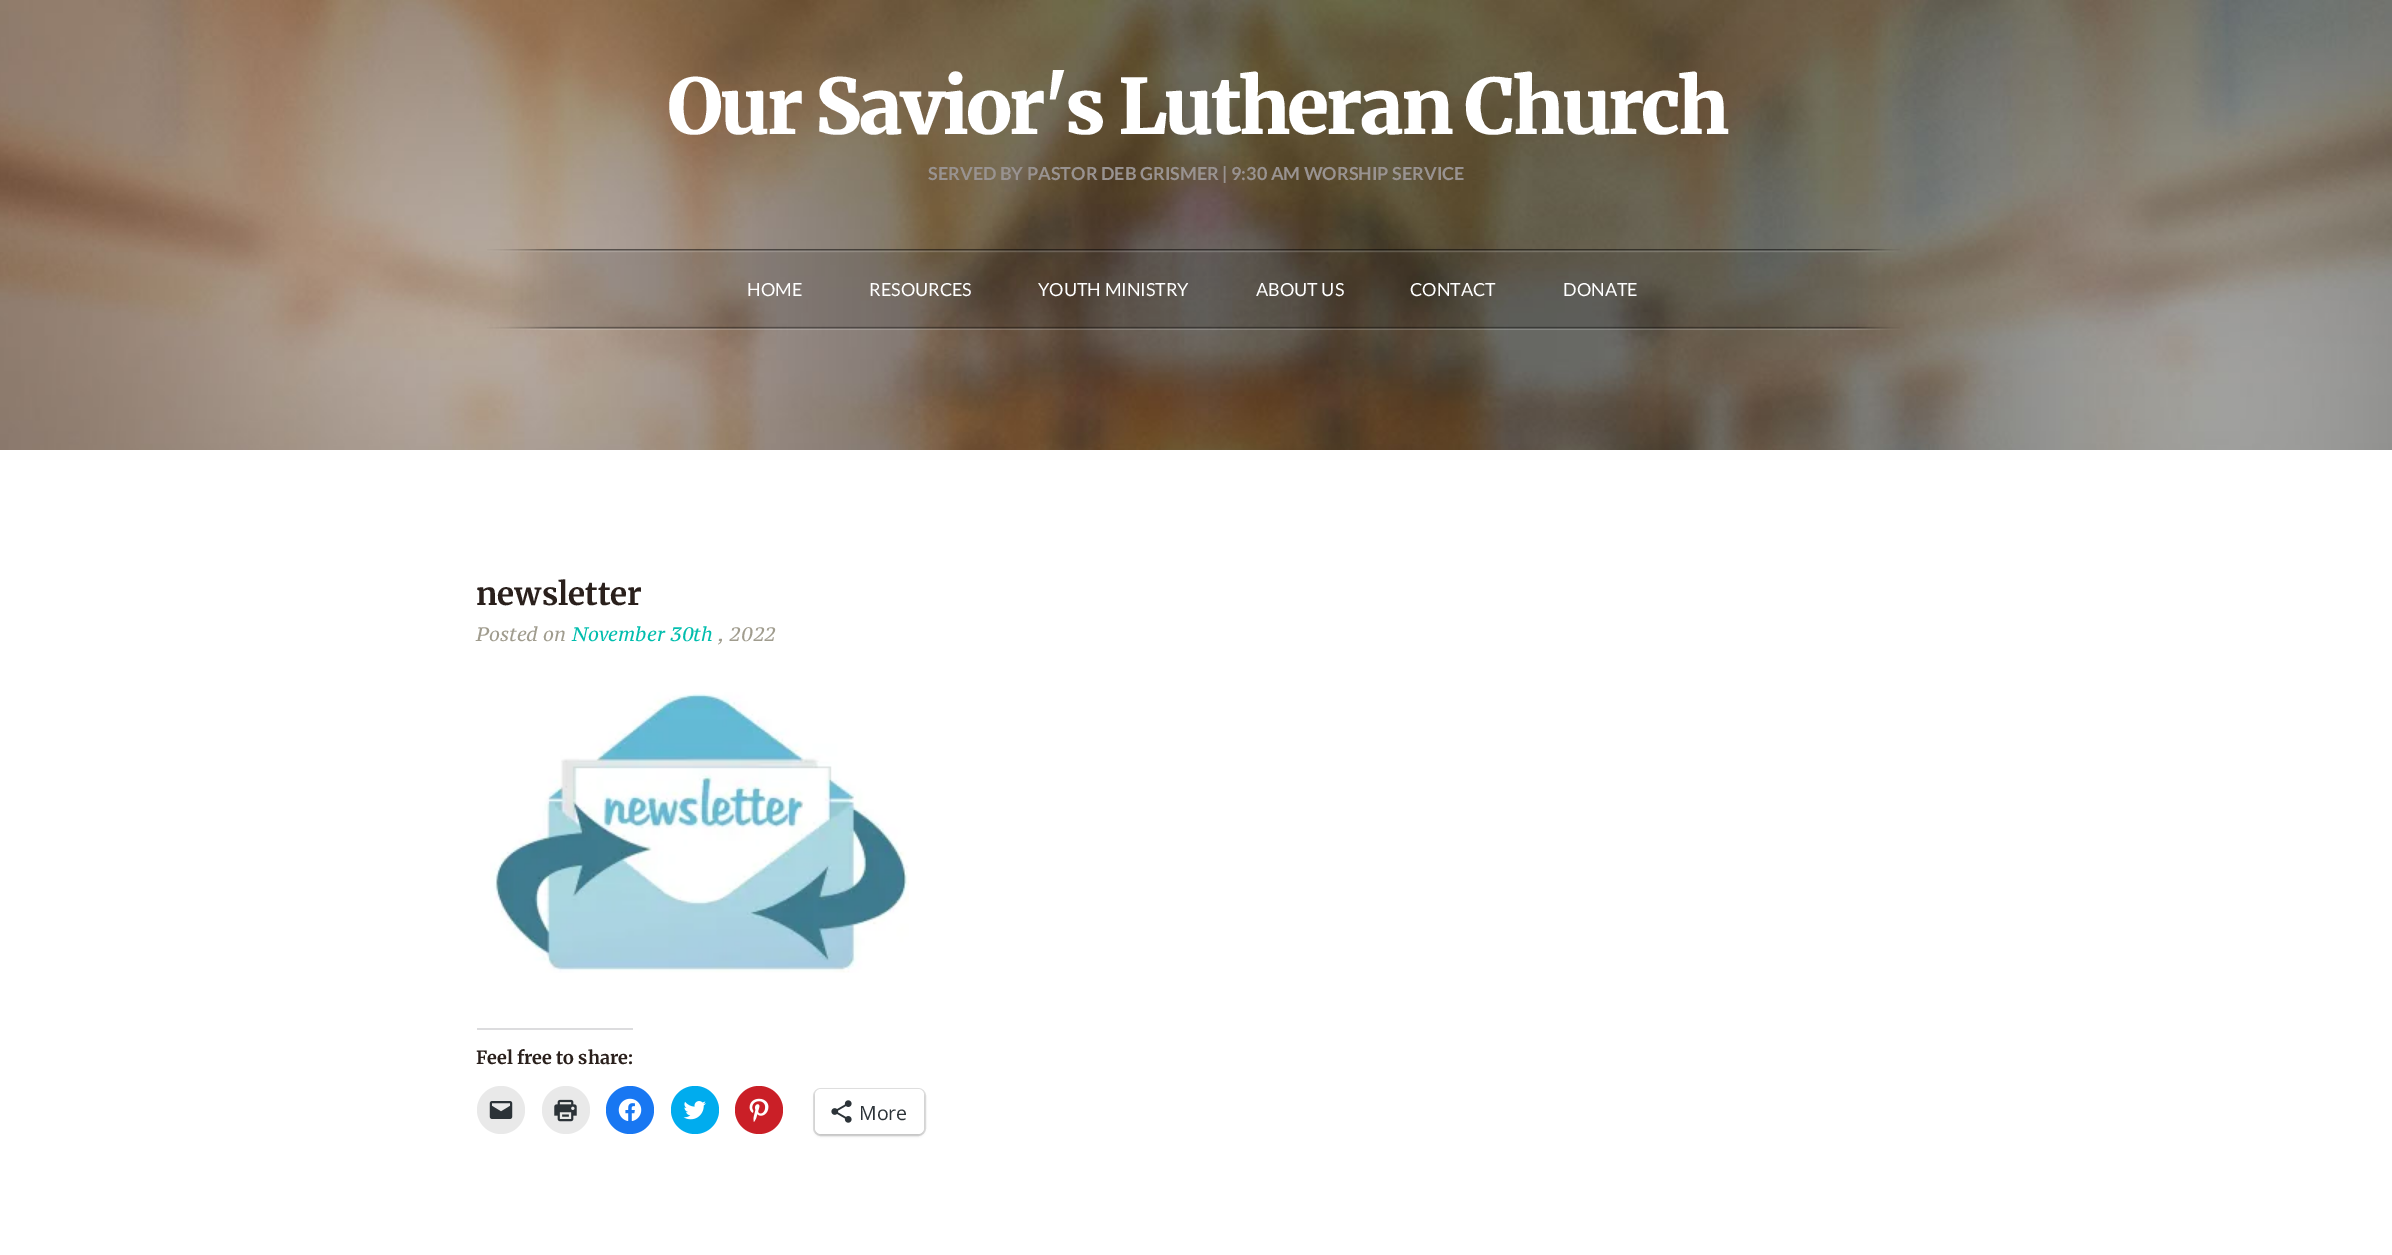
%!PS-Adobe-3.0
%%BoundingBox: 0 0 2392 1255
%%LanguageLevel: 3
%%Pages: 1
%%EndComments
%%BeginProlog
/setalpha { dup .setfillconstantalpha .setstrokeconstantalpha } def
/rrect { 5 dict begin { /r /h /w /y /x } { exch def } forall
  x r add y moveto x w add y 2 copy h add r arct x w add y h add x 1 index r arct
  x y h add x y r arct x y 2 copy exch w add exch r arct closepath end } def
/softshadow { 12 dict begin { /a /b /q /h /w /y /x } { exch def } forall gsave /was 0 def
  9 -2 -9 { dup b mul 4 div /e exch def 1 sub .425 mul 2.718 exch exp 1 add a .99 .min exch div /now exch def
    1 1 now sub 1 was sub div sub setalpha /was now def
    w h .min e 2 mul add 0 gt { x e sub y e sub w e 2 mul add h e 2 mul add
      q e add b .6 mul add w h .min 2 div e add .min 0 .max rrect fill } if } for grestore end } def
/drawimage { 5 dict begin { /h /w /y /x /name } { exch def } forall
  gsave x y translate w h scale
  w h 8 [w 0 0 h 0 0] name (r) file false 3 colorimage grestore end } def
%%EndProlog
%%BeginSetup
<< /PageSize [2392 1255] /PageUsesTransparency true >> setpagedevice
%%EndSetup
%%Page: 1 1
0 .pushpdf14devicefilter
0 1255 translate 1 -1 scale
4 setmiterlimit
1 setgray
0 0 2392 1255 rectfill
(images/1.raw) 0 0 2392 450 drawimage
(images/2.raw) 1786 249 114 81 drawimage
(images/3.raw) 487 249 1300 81 drawimage
(images/4.raw) 490 692 419 281 drawimage
0.863 0.863 0.871 setrgbcolor
477 1028 156 2 rectfill
0.914 setgray
newpath 501 1110 24 0 360 arc closepath fill
(images/5.raw) 489 1101 24 18 drawimage
newpath 566 1110 24 0 360 arc closepath fill
(images/6.raw) 554 1099 23 23 drawimage
0.094 0.467 0.949 setrgbcolor
newpath 630 1110 24 0 360 arc closepath fill
(images/7.raw) 618 1098 24 23 drawimage
0 0.675 0.933 setrgbcolor
newpath 695 1110 24 0 360 arc closepath fill
(images/8.raw) 683 1101 23 19 drawimage
0.792 0.122 0.153 setrgbcolor
newpath 759 1110 24 0 360 arc closepath fill
(images/9.raw) 749 1098 20 24 drawimage
0.878 setgray
2 setlinewidth
814 1089 111 46 7 rrect stroke
0 setgray
815 1091 109 45 6 1.5 0.12 softshadow
1 setgray
815 1089 109 45 6 rrect fill
(images/10.raw) 831 1100 21 23 drawimage
/Merriweather-Black [76.5 0 0 -76.5 0 0] selectfont
667 134 moveto -3 0 (Our Savior's Lutheran Church) ashow
/Lato-Bold [18 0 0 -18 0 0] selectfont
0.6 0.576 0.569 setrgbcolor
928 180 moveto (SERVED BY PASTOR DEB GRISMER | 9:30 AM WORSHIP SERVICE) show
/Lato-Regular [18 0 0 -18 0 0] selectfont
1 setgray
747 296 moveto (HOME) show
869 296 moveto (RESOURCES) show
1038 296 moveto (YOUTH MINISTRY) show
1256 296 moveto (ABOUT US) show
1410 296 moveto (CONTACT) show
1563 296 moveto (DONATE) show
/Merriweather-Bold [31.5 0 0 -31.5 0 0] selectfont
0.165 0.125 0.11 setrgbcolor
476 605 moveto (newsletter) show
/PTSerifCaption-Italic [19.5 0 0 -19.5 0 0] selectfont
0.627 0.612 0.557 setrgbcolor
476 641 moveto (Posted on) show
0 0.741 0.678 setrgbcolor
572 641 moveto (November 30th) show
0.627 0.612 0.557 setrgbcolor
718 641 moveto (, 2022) show
/Merriweather-Bold [18 0 0 -18 0 0] selectfont
0.165 0.125 0.11 setrgbcolor
476 1064 moveto (Feel free to share:) show
/OpenSans-Regular [19.5 0 0 -19.5 0 0] selectfont
0.173 0.2 0.22 setrgbcolor
859 1120 moveto (More) show
.poppdf14devicefilter showpage
%%EOF
